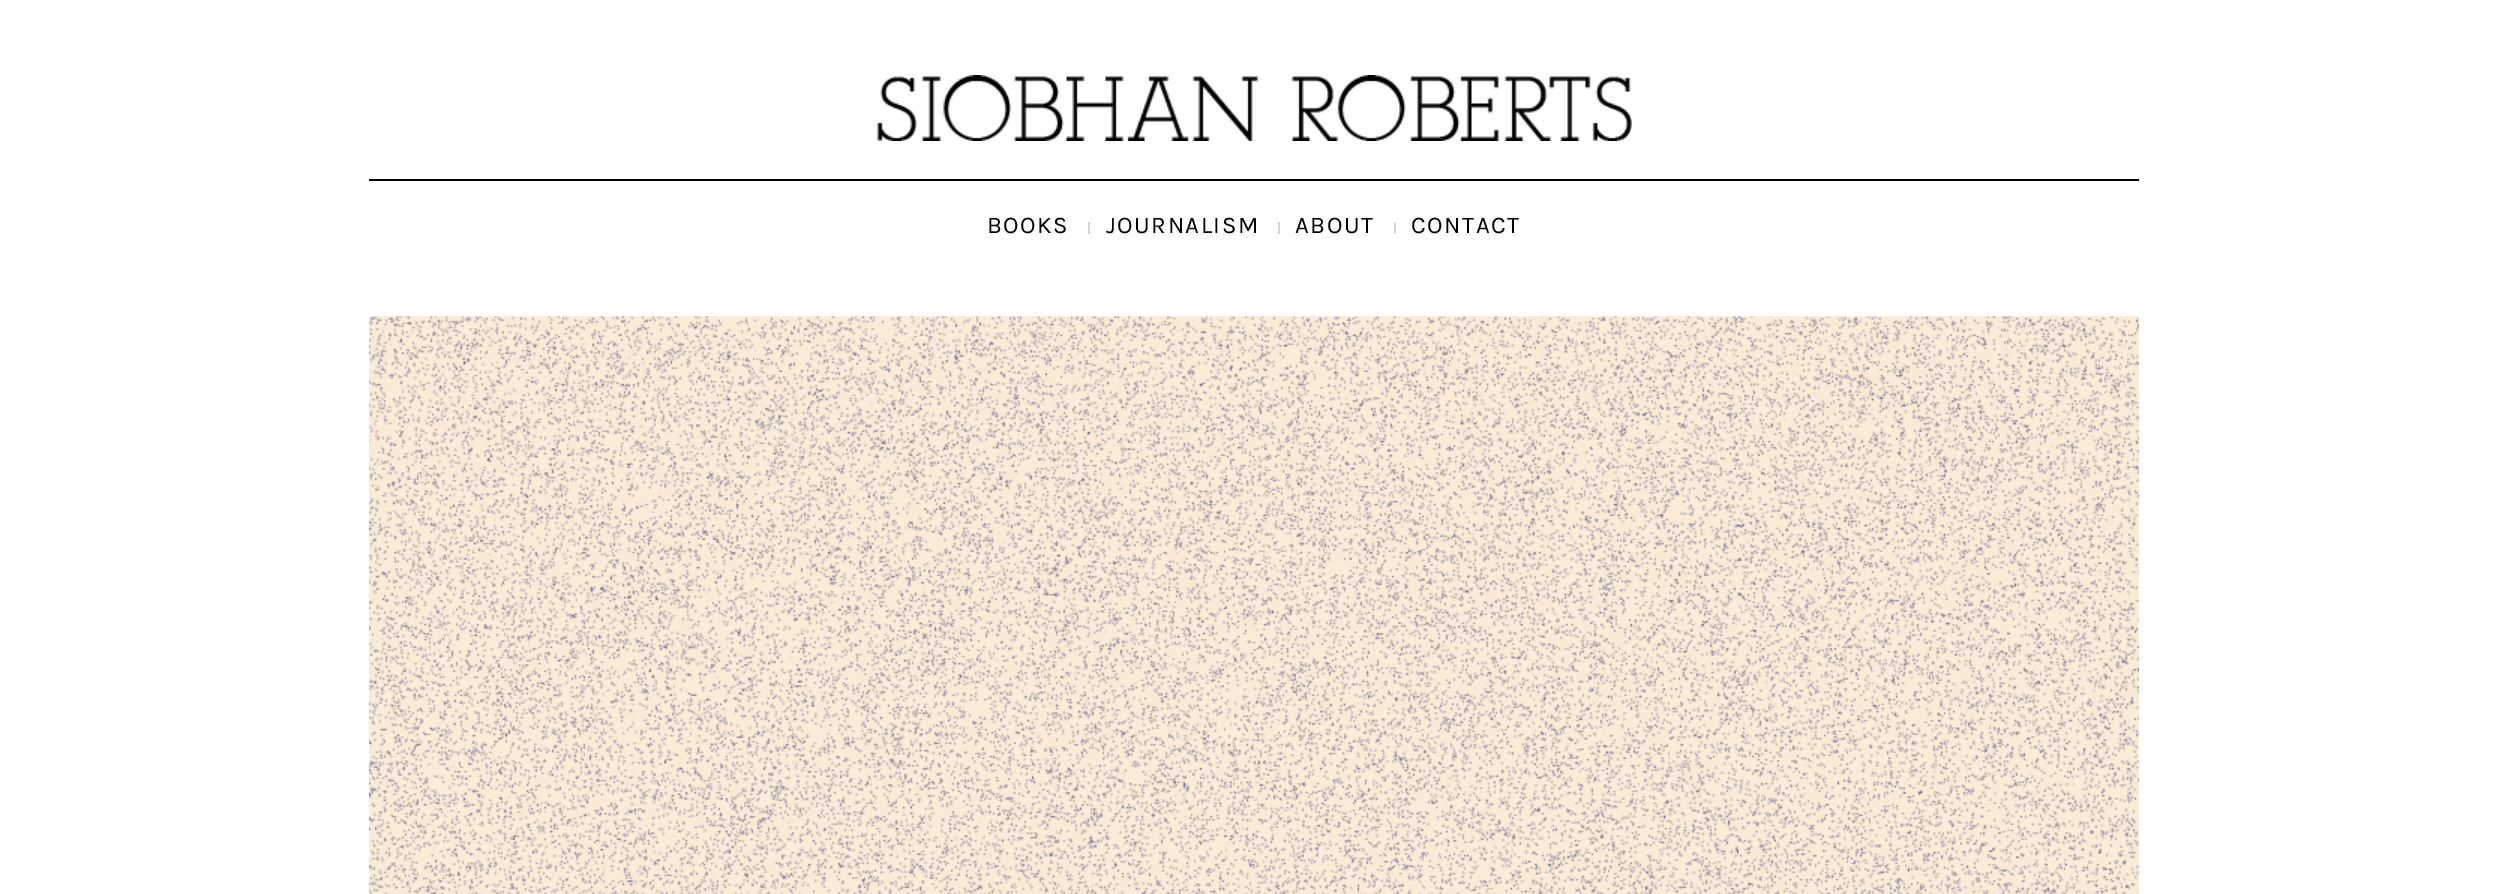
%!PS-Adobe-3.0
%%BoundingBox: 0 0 2507 894
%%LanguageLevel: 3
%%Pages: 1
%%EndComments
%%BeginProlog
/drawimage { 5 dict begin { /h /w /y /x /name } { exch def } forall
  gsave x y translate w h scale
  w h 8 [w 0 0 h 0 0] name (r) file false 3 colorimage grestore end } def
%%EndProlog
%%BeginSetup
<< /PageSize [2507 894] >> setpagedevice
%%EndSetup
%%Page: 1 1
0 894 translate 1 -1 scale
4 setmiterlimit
1 setgray
0 0 2507 894 rectfill
(images/1.raw) 877 75 755 66 drawimage
0 setgray
369 179 1770 2 rectfill
0.839 setgray
1088 222 2 12 rectfill
1278 222 2 12 rectfill
1394 222 2 12 rectfill
(images/2.raw) 369 316 1770 578 drawimage
/Karla-Regular [24 0 0 -24 0 0] selectfont
0 setgray
987 233 moveto 1.5 0 (BOOKS) ashow
1106 233 moveto 1.5 0 (JOURNALISM) ashow
1295 233 moveto 1.5 0 (ABOUT) ashow
1411 233 moveto 1.5 0 (CONTACT) ashow
showpage
%%EOF
